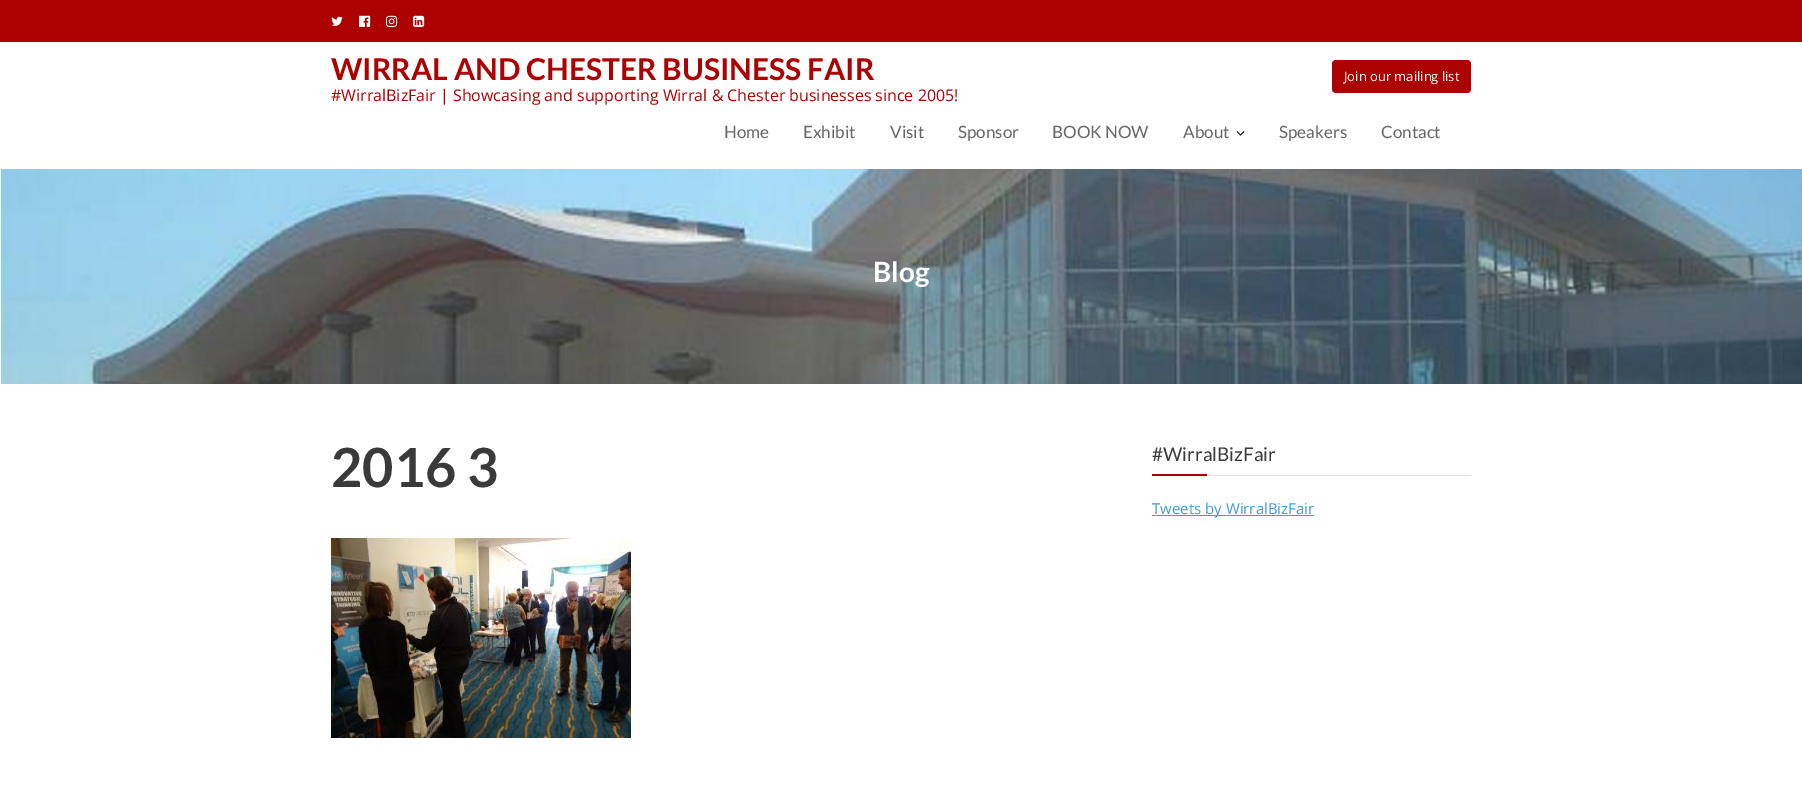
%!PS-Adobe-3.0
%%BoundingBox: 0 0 1802 789
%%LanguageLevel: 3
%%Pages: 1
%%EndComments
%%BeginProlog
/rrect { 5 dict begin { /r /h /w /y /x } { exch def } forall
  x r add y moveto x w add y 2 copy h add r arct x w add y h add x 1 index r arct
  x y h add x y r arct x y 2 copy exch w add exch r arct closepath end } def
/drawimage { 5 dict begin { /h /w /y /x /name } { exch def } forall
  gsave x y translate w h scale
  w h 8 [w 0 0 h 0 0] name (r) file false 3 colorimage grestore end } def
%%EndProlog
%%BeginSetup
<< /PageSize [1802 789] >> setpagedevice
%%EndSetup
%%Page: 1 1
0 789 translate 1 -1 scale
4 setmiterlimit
1 setgray
0 0 1802 789 rectfill
0.678 0.008 0.008 setrgbcolor
0 0 1802 42 rectfill
(images/1.raw) 331 16 12 10 drawimage
(images/2.raw) 359 15 12 12 drawimage
(images/3.raw) 386 15 12 12 drawimage
(images/4.raw) 413 15 12 12 drawimage
1332 60 139 33 4 rrect fill
(images/5.raw) 1236 131 9 5 drawimage
(images/6.raw) 0 169 1802 215 drawimage
(images/7.raw) 331 538 300 200 drawimage
0.886 setgray
1207 475 264 1 rectfill
0.678 0.008 0.008 setrgbcolor
1152 474 55 2 rectfill
0.239 0.62 0.839 setrgbcolor
1152 515 162 1 rectfill
/Lato-Bold [30 0 0 -30 0 0] selectfont
0.678 0.008 0.008 setrgbcolor
331 80 moveto (WIRRAL AND CHESTER BUSINESS FAIR) show
/OpenSans-Regular [16 0 0 -16 0 0] selectfont
331 101 moveto (#WirralBizFair | Showcasing and supporting Wirral & Chester businesses since 2005!) show
/OpenSans-Regular [13 0 0 -13 0 0] selectfont
1 setgray
1344 81 moveto (Join our mailing list) show
/Lato-Regular [17 0 0 -17 0 0] selectfont
0.4 setgray
724 138 moveto (Home) show
803 138 moveto (Exhibit) show
890 138 moveto (Visit) show
958 138 moveto (Sponsor) show
1052 138 moveto (BOOK NOW) show
1183 138 moveto (About) show
1279 138 moveto (Speakers) show
1381 138 moveto (Contact) show
/Lato-Bold [28 0 0 -28 0 0] selectfont
1 setgray
873 282 moveto (Blog) show
/Lato-Bold [54 0 0 -54 0 0] selectfont
0.227 setgray
331 487 moveto (2016 3) show
/Lato-Regular [19 0 0 -19 0 0] selectfont
1152 461 moveto (#WirralBizFair) show
/OpenSans-Regular [15 0 0 -15 0 0] selectfont
0.239 0.62 0.839 setrgbcolor
1152 514 moveto (Tweets by WirralBizFair) show
showpage
%%EOF
